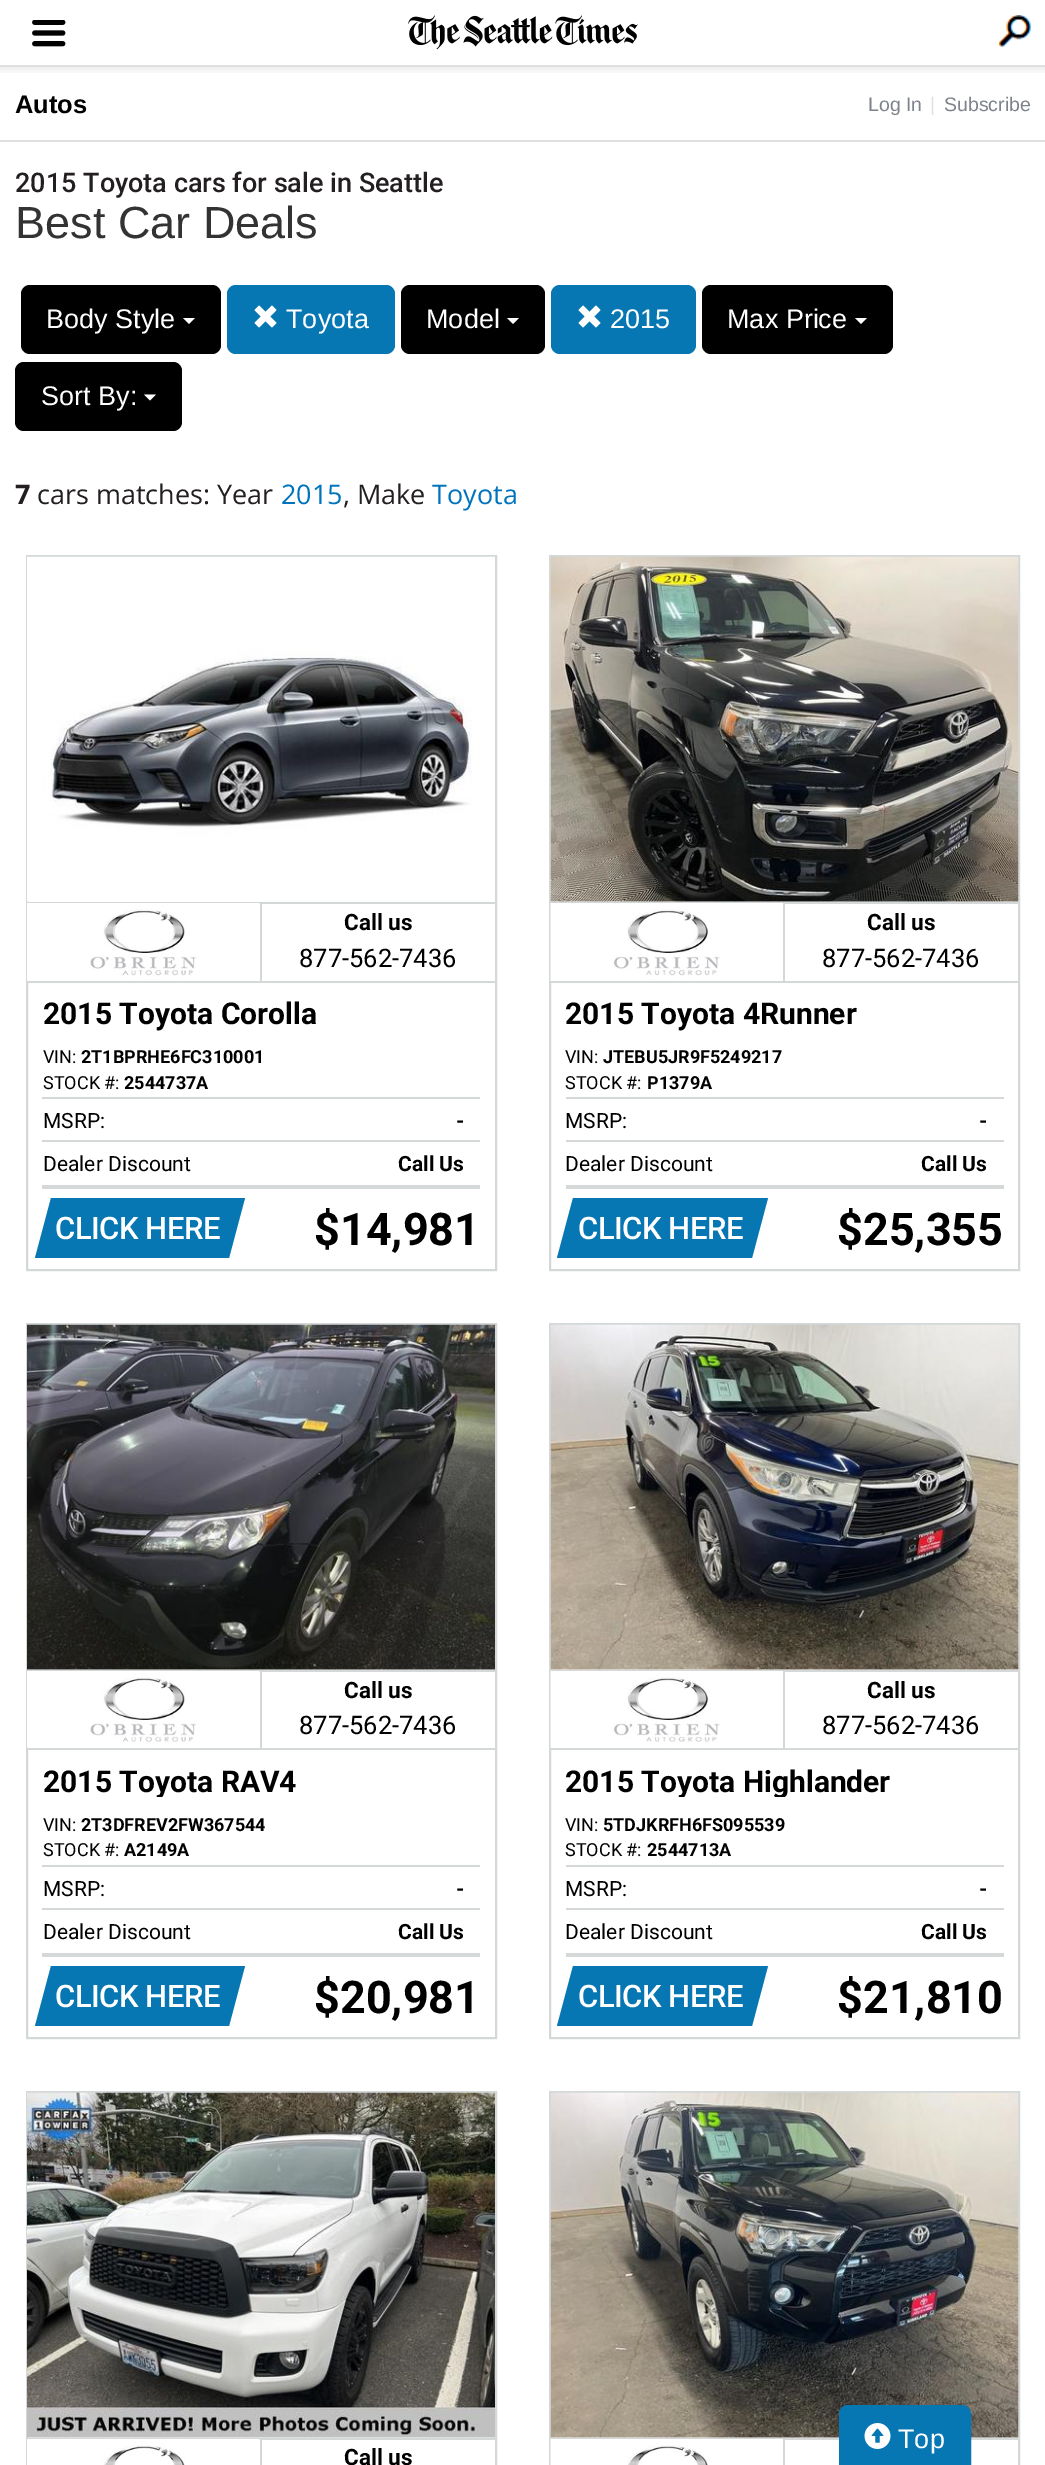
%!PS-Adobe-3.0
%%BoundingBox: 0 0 1045 2465
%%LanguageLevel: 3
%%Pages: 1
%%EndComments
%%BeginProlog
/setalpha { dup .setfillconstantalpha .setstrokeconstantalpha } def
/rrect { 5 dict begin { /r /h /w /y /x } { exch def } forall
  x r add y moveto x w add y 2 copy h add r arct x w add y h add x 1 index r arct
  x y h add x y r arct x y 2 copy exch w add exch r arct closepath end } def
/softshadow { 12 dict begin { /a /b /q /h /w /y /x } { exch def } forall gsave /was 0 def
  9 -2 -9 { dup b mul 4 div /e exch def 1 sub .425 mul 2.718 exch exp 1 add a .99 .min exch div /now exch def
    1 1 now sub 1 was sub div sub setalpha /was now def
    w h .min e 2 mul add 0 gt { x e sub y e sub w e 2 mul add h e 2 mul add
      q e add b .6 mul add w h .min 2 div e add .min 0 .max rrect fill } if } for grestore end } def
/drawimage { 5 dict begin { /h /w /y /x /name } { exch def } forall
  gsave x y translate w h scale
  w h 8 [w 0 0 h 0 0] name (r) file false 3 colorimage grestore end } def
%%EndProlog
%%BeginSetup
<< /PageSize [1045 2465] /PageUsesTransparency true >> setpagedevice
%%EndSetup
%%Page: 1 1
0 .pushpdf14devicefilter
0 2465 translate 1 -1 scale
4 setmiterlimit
1 setgray
0 0 1045 2465 rectfill
gsave
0 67 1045 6 rectclip
0 setgray
0 3 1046 66 0 5 0.1 softshadow
grestore
0.878 setgray
0 65 1045 2 rectfill
(images/1.raw) 32 20 34 27 drawimage
(images/2.raw) 408 15 230 35 drawimage
(images/3.raw) 999 15 32 32 drawimage
0 140 1045 2 rectfill
0 setgray
21 285 200 69 9 rrect fill
1 setgray
newpath 183 318 moveto 195 318 lineto 189 324 lineto closepath fill
0.027 0.467 0.702 setrgbcolor
227 285 168 69 9 rrect fill
(images/4.raw) 254 305 23 23 drawimage
0 setgray
401 285 144 69 9 rrect fill
1 setgray
newpath 507 318 moveto 519 318 lineto 513 324 lineto closepath fill
0.027 0.467 0.702 setrgbcolor
551 285 145 69 9 rrect fill
(images/4.raw) 578 305 23 23 drawimage
0 setgray
702 285 191 69 9 rrect fill
1 setgray
newpath 855 318 moveto 867 318 lineto 861 324 lineto closepath fill
0 setgray
15 362 167 69 9 rrect fill
1 setgray
newpath 144 394.5 moveto 156 394.5 lineto 150 400.5 lineto closepath fill
0.831 0.847 0.851 setrgbcolor
2 setlinewidth
27 556 469 714 rectstroke
(images/5.raw) 27 556 468 346 drawimage
27 902 234 2 rectfill
260 902 2 81 rectfill
27 981 468 2 rectfill
(images/6.raw) 27 903 233 78 drawimage
261 902 234 2 rectfill
42 1097 438 2 rectfill
42 1140 438 2 rectfill
42 1185 438 4 rectfill
0.027 0.467 0.702 setrgbcolor
newpath 51 1198 moveto 245 1198 lineto 229 1258 lineto 35 1258 lineto closepath fill
0.831 0.847 0.851 setrgbcolor
550 556 469 714 rectstroke
(images/7.raw) 550 556 469 346 drawimage
551 902 234 1 rectfill
783 902 2 81 rectfill
551 981 468 2 rectfill
(images/8.raw) 550 903 233 78 drawimage
785 902 234 2 rectfill
566 1097 438 2 rectfill
566 1140 438 2 rectfill
566 1185 438 4 rectfill
0.027 0.467 0.702 setrgbcolor
newpath 573 1198 moveto 768 1198 lineto 752 1258 lineto 557 1258 lineto closepath fill
0.831 0.847 0.851 setrgbcolor
27 1324 469 714 rectstroke
(images/9.raw) 27 1324 468 346 drawimage
27 1670 234 2 rectfill
260 1670 2 79 rectfill
27 1748 468 2 rectfill
(images/10.raw) 27 1671 233 77 drawimage
261 1670 234 2 rectfill
42 1865 438 2 rectfill
42 1908 438 2 rectfill
42 1953 438 4 rectfill
0.027 0.467 0.702 setrgbcolor
newpath 51 1966 moveto 245 1966 lineto 229 2026 lineto 35 2026 lineto closepath fill
0.831 0.847 0.851 setrgbcolor
550 1324 469 714 rectstroke
(images/11.raw) 550 1324 469 346 drawimage
551 1670 234 1 rectfill
783 1670 2 79 rectfill
551 1748 468 2 rectfill
(images/12.raw) 550 1671 233 77 drawimage
785 1670 234 2 rectfill
566 1865 438 2 rectfill
566 1908 438 2 rectfill
566 1953 438 4 rectfill
0.027 0.467 0.702 setrgbcolor
newpath 573 1966 moveto 768 1966 lineto 752 2026 lineto 557 2026 lineto closepath fill
0.831 0.847 0.851 setrgbcolor
27 2092 469 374 rectstroke
(images/13.raw) 27 2092 468 346 drawimage
27 2438 234 2 rectfill
260 2438 2 27 rectfill
(images/14.raw) 27 2439 233 26 drawimage
261 2438 234 2 rectfill
550 2092 469 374 rectstroke
(images/15.raw) 550 2092 469 346 drawimage
551 2438 234 1 rectfill
783 2438 2 27 rectfill
(images/16.raw) 550 2439 233 26 drawimage
785 2438 234 2 rectfill
0.027 0.467 0.702 setrgbcolor
840 2406 130 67 8 rrect gsave fill grestore
stroke
(images/17.raw) 864 2423 27 26 drawimage
/LiberationSans-Bold [25.5 0 0 -25.5 0 0] selectfont
0 setgray
15 113 moveto (Autos) show
/LiberationSans-Regular [19.5 0 0 -19.5 0 0] selectfont
0.494 0.514 0.545 setrgbcolor
868 111 moveto (Log In) show
0.878 setgray
930 111 moveto (|) show
0.494 0.514 0.545 setrgbcolor
944 111 moveto (Subscribe) show
/Roboto-Medium [27 0 0 -27 0 0] selectfont
0.137 0.122 0.125 setrgbcolor
15 192 moveto (2015 Toyota cars for sale in Seattle) show
/LiberationSans-Regular [45 0 0 -45 0 0] selectfont
0.2 setgray
15 238 moveto (Best Car Deals) show
/LiberationSans-Regular [27 0 0 -27 0 0] selectfont
1 setgray
46 328 moveto (Body Style) show
286 328 moveto (Toyota) show
426 328 moveto (Model) show
610 328 moveto (2015) show
727 328 moveto (Max Price) show
41 405 moveto (Sort By:) show
/OpenSans-Bold [27 0 0 -27 0 0] selectfont
0.137 0.122 0.125 setrgbcolor
15 504 moveto (7) show
/OpenSans-Regular [27 0 0 -27 0 0] selectfont
37 504 moveto (cars matches: Year) show
0 0.451 0.741 setrgbcolor
281 504 moveto (2015) show
0.137 0.122 0.125 setrgbcolor
343 504 moveto (, Make) show
0 0.451 0.741 setrgbcolor
432 504 moveto (Toyota) show
/Roboto-Bold [22.5 0 0 -22.5 0 0] selectfont
0 setgray
344 930 moveto (Call us) show
/Roboto-Regular [25.5 0 0 -25.5 0 0] selectfont
299 967 moveto (877-562-7436) show
/Roboto-Bold [30 0 0 -30 0 0] selectfont
43 1024 moveto (2015 Toyota Corolla) show
/Roboto-Regular [18 0 0 -18 0 0] selectfont
43 1063 moveto (VIN:) show
/Roboto-Bold [18 0 0 -18 0 0] selectfont
81 1063 moveto (2T1BPRHE6FC310001) show
/Roboto-Regular [18 0 0 -18 0 0] selectfont
43 1089 moveto (STOCK #:) show
/Roboto-Bold [18 0 0 -18 0 0] selectfont
124 1089 moveto (2544737A) show
/Roboto-Regular [21 0 0 -21 0 0] selectfont
43 1128 moveto (MSRP:) show
/Roboto-Bold [21 0 0 -21 0 0] selectfont
456 1128 moveto (-) show
/Roboto-Regular [21 0 0 -21 0 0] selectfont
43 1171 moveto (Dealer Discount) show
/Roboto-Bold [21 0 0 -21 0 0] selectfont
398 1171 moveto (Call Us) show
/Roboto-Medium [31 0 0 -31 0 0] selectfont
1 setgray
55 1239 moveto -0.5 0 (CLICK HERE) ashow
/Roboto-Bold [45 0 0 -45 0 0] selectfont
0 setgray
314 1245 moveto ($14,981) show
/Roboto-Bold [22.5 0 0 -22.5 0 0] selectfont
867 930 moveto (Call us) show
/Roboto-Regular [25.5 0 0 -25.5 0 0] selectfont
822 967 moveto (877-562-7436) show
/Roboto-Bold [30 0 0 -30 0 0] selectfont
565 1024 moveto (2015 Toyota 4Runner) show
/Roboto-Regular [18 0 0 -18 0 0] selectfont
565 1063 moveto (VIN:) show
/Roboto-Bold [18 0 0 -18 0 0] selectfont
603 1063 moveto (JTEBU5JR9F5249217) show
/Roboto-Regular [18 0 0 -18 0 0] selectfont
565 1089 moveto (STOCK #:) show
/Roboto-Bold [18 0 0 -18 0 0] selectfont
647 1089 moveto (P1379A) show
/Roboto-Regular [21 0 0 -21 0 0] selectfont
565 1128 moveto (MSRP:) show
/Roboto-Bold [21 0 0 -21 0 0] selectfont
979 1128 moveto (-) show
/Roboto-Regular [21 0 0 -21 0 0] selectfont
565 1171 moveto (Dealer Discount) show
/Roboto-Bold [21 0 0 -21 0 0] selectfont
921 1171 moveto (Call Us) show
/Roboto-Medium [31 0 0 -31 0 0] selectfont
1 setgray
578 1239 moveto -0.5 0 (CLICK HERE) ashow
/Roboto-Bold [45 0 0 -45 0 0] selectfont
0 setgray
837 1245 moveto ($25,355) show
/Roboto-Bold [22.5 0 0 -22.5 0 0] selectfont
344 1698 moveto (Call us) show
/Roboto-Regular [25.5 0 0 -25.5 0 0] selectfont
299 1734 moveto (877-562-7436) show
gsave
42 1764 255 33 rectclip
/Roboto-Bold [30 0 0 -30 0 0] selectfont
43 1792 moveto (2015 Toyota RAV4) show
grestore
/Roboto-Regular [18 0 0 -18 0 0] selectfont
43 1831 moveto (VIN:) show
/Roboto-Bold [18 0 0 -18 0 0] selectfont
81 1831 moveto (2T3DFREV2FW367544) show
/Roboto-Regular [18 0 0 -18 0 0] selectfont
43 1856 moveto (STOCK #:) show
/Roboto-Bold [18 0 0 -18 0 0] selectfont
124 1856 moveto (A2149A) show
/Roboto-Regular [21 0 0 -21 0 0] selectfont
43 1896 moveto (MSRP:) show
/Roboto-Bold [21 0 0 -21 0 0] selectfont
456 1896 moveto (-) show
/Roboto-Regular [21 0 0 -21 0 0] selectfont
43 1939 moveto (Dealer Discount) show
/Roboto-Bold [21 0 0 -21 0 0] selectfont
398 1939 moveto (Call Us) show
/Roboto-Medium [31 0 0 -31 0 0] selectfont
1 setgray
55 2007 moveto -0.5 0 (CLICK HERE) ashow
/Roboto-Bold [45 0 0 -45 0 0] selectfont
0 setgray
314 2013 moveto ($20,981) show
/Roboto-Bold [22.5 0 0 -22.5 0 0] selectfont
867 1698 moveto (Call us) show
/Roboto-Regular [25.5 0 0 -25.5 0 0] selectfont
822 1734 moveto (877-562-7436) show
gsave
566 1764 325 33 rectclip
/Roboto-Bold [30 0 0 -30 0 0] selectfont
565 1792 moveto (2015 Toyota Highlander) show
grestore
/Roboto-Regular [18 0 0 -18 0 0] selectfont
565 1831 moveto (VIN:) show
/Roboto-Bold [18 0 0 -18 0 0] selectfont
603 1831 moveto (5TDJKRFH6FS095539) show
/Roboto-Regular [18 0 0 -18 0 0] selectfont
565 1856 moveto (STOCK #:) show
/Roboto-Bold [18 0 0 -18 0 0] selectfont
647 1856 moveto (2544713A) show
/Roboto-Regular [21 0 0 -21 0 0] selectfont
565 1896 moveto (MSRP:) show
/Roboto-Bold [21 0 0 -21 0 0] selectfont
979 1896 moveto (-) show
/Roboto-Regular [21 0 0 -21 0 0] selectfont
565 1939 moveto (Dealer Discount) show
/Roboto-Bold [21 0 0 -21 0 0] selectfont
921 1939 moveto (Call Us) show
/Roboto-Medium [31 0 0 -31 0 0] selectfont
1 setgray
578 2007 moveto -0.5 0 (CLICK HERE) ashow
/Roboto-Bold [45 0 0 -45 0 0] selectfont
0 setgray
837 2013 moveto ($21,810) show
/Roboto-Bold [22.5 0 0 -22.5 0 0] selectfont
344 2465 moveto (Call us) show
/LiberationSans-Regular [27 0 0 -27 0 0] selectfont
1 setgray
898 2448 moveto (Top) show
.poppdf14devicefilter showpage
%%EOF
